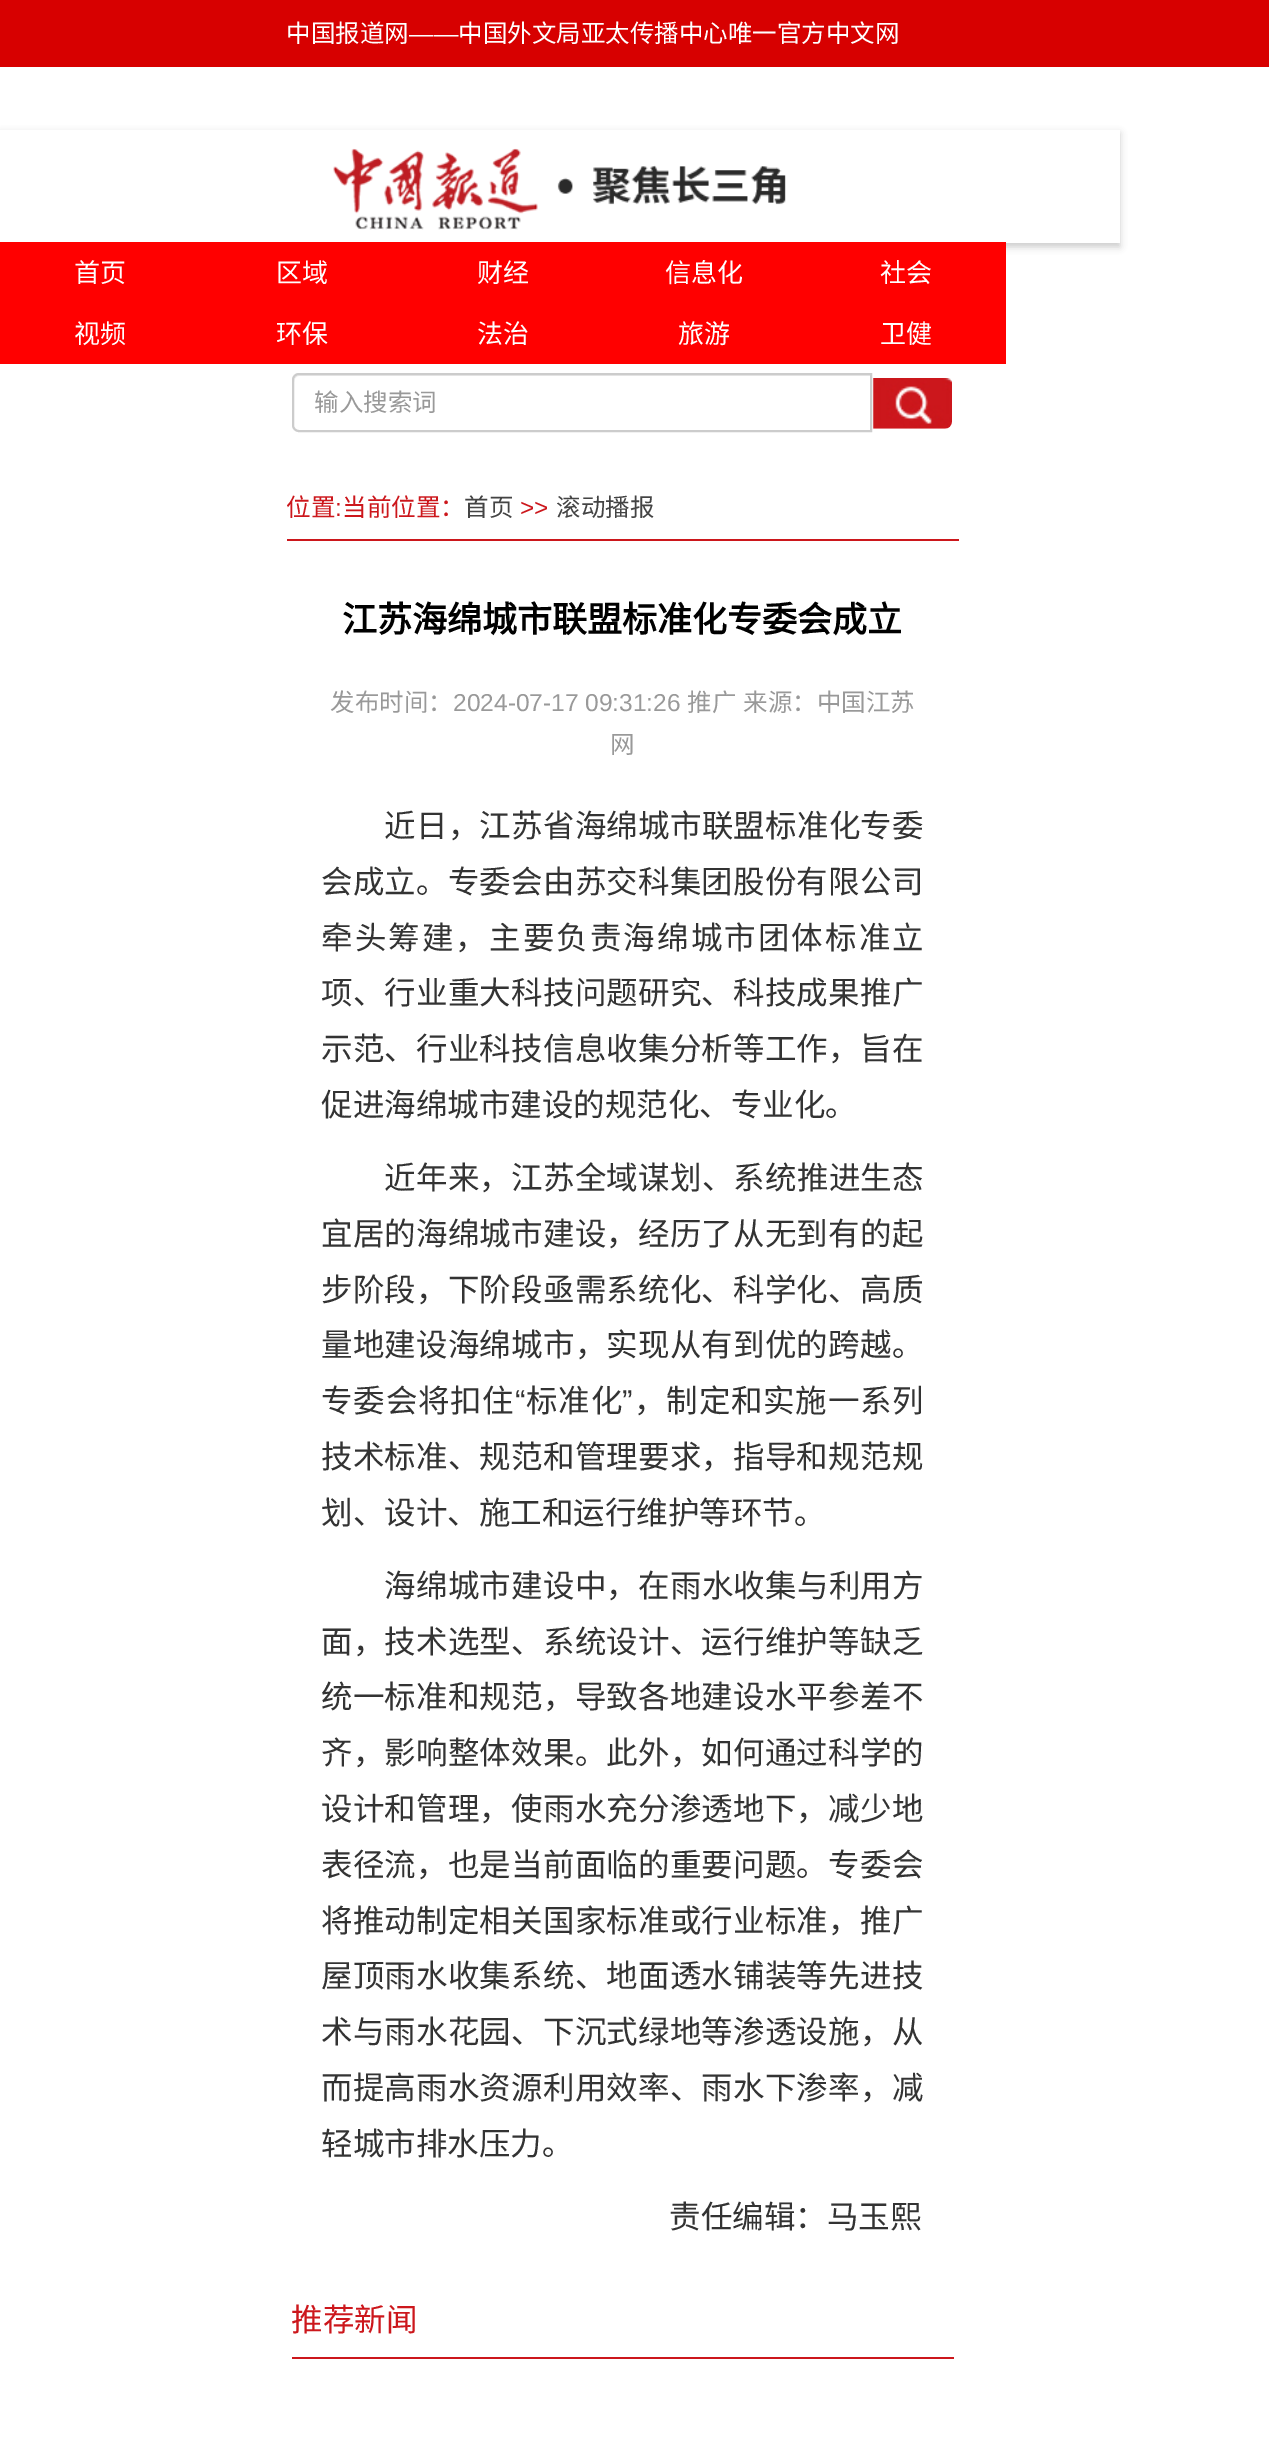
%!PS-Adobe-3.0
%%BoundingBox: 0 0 1269 2450
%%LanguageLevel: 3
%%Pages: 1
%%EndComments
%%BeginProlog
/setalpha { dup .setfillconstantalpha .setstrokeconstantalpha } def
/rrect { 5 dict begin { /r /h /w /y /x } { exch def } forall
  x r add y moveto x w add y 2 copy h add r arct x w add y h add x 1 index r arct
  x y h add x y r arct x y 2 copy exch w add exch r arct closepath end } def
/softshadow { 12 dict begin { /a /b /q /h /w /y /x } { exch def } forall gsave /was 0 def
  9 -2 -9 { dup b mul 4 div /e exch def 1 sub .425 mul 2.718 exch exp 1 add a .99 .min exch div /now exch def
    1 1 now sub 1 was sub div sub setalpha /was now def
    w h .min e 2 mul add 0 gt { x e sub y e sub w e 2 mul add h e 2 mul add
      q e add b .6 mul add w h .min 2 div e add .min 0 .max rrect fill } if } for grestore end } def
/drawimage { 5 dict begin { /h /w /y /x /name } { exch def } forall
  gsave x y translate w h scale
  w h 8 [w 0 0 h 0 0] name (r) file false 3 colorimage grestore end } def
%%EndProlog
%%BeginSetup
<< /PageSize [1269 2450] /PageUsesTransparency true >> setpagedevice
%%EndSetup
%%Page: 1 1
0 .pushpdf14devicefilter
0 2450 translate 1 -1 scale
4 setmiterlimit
1 setgray
0 0 1269 2450 rectfill
0.843 0 0 setrgbcolor
0 0 1269 67 rectfill
gsave
newpath 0 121 moveto 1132 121 lineto 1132 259 lineto 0 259 lineto closepath 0 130 moveto 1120 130 lineto 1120 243 lineto 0 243 lineto closepath eoclip newpath
0.8 setgray
0 133 1120 114 0 3.5 1 softshadow
grestore
(images/1.raw) 333 148 453 82 drawimage
1 0 0 setrgbcolor
0 242 1006 122 rectfill
0.925 setgray
newpath 299 376 moveto 870 376 lineto 870 375 lineto 299 375 lineto 295 375 294 379 294 382 curveto 294 379 296 376 299 376 curveto closepath fill
0.8 setgray
2 setlinewidth
newpath 299 374 moveto 871 374 lineto 871 431 lineto 299 431 lineto 295.5 431 293 428.5 293 425 curveto 293 380 lineto 293 376.5 295.5 374 299 374 curveto closepath stroke
(images/2.raw) 873 378 79 51 drawimage
0.8 0.09 0.11 setrgbcolor
287 539 672 2 rectfill
292 2357 662 2 rectfill
/NotoSansCJKSC-Regular [24.5 0 0 -24.5 0 0] selectfont
1 setgray
286 42 moveto (中国报道网) show
/LiberationSans-Regular [24.5 0 0 -24.5 0 0] selectfont
409 42 moveto (——) show
/NotoSansCJKSC-Regular [24.5 0 0 -24.5 0 0] selectfont
458 42 moveto (中国外文局亚太传播中心唯一官方中文网) show
/NotoSansCJKSC-Regular [26 0 0 -26 0 0] selectfont
74 282 moveto (首页) show
276 282 moveto (区域) show
477 282 moveto (财经) show
665 282 moveto (信息化) show
880 282 moveto (社会) show
74 343 moveto (视频) show
276 343 moveto (环保) show
477 343 moveto (法治) show
678 343 moveto (旅游) show
880 343 moveto (卫健) show
/NotoSansCJKSC-Regular [24.5 0 0 -24.5 0 0] selectfont
0.6 setgray
314 411 moveto (输入搜索词) show
0.8 0.09 0.11 setrgbcolor
286 516 moveto (位置) show
/LiberationSans-Regular [24.5 0 0 -24.5 0 0] selectfont
335 516 moveto (:) show
/NotoSansCJKSC-Regular [24.5 0 0 -24.5 0 0] selectfont
342 516 moveto (当前位置：) show
0.267 setgray
464 516 moveto (首页) show
/LiberationSans-Regular [24.5 0 0 -24.5 0 0] selectfont
0.8 0.09 0.11 setrgbcolor
520 516 moveto (>>) show
/NotoSansCJKSC-Regular [24.5 0 0 -24.5 0 0] selectfont
0.267 setgray
556 516 moveto (滚动播报) show
/NotoSansCJKSC-Bold [35 0 0 -35 0 0] selectfont
0 setgray
342 632 moveto (江苏海绵城市联盟标准化专委会成立) show
/NotoSansCJKSC-Regular [24.5 0 0 -24.5 0 0] selectfont
0.6 setgray
330 711 moveto (发布时间：) show
/LiberationSans-Regular [24.5 0 0 -24.5 0 0] selectfont
453 711 moveto (2024-07-17 09:31:26) show
/NotoSansCJKSC-Regular [24.5 0 0 -24.5 0 0] selectfont
687 711 moveto (推广) show
743 711 moveto (来源：中国江苏) show
610 753 moveto (网) show
/NotoSansCJKSC-Regular [31.5 0 0 -31.5 0 0] selectfont
0.2 setgray
384 837 moveto 0.25 0 (近日，江苏省海绵城市联盟标准化专委) ashow
321 893 moveto 0.2 0 (会成立。专委会由苏交科集团股份有限公司) ashow
321 949 moveto 2.1 0 (牵头筹建，主要负责海绵城市团体标准立) ashow
321 1004 moveto 0.2 0 (项、行业重大科技问题研究、科技成果推广) ashow
321 1060 moveto 0.2 0 (示范、行业科技信息收集分析等工作，旨在) ashow
321 1116 moveto (促进海绵城市建设的规范化、专业化。) show
384 1189 moveto 0.25 0 (近年来，江苏全域谋划、系统推进生态) ashow
321 1245 moveto 0.2 0 (宜居的海绵城市建设，经历了从无到有的起) ashow
321 1301 moveto 0.2 0 (步阶段，下阶段亟需系统化、科学化、高质) ashow
321 1356 moveto 0.2 0 (量地建设海绵城市，实现从有到优的跨越。) ashow
321 1412 moveto 0.75 0 (专委会将扣住) ashow
/LiberationSans-Regular [31.5 0 0 -31.5 0 0] selectfont
515 1412 moveto 0.75 0 (“) ashow
/NotoSansCJKSC-Regular [31.5 0 0 -31.5 0 0] selectfont
526 1412 moveto 0.75 0 (标准化) ashow
/LiberationSans-Regular [31.5 0 0 -31.5 0 0] selectfont
622 1412 moveto 0.75 0 (”) ashow
/NotoSansCJKSC-Regular [31.5 0 0 -31.5 0 0] selectfont
634 1412 moveto 0.75 0 (，制定和实施一系列) ashow
321 1468 moveto 0.2 0 (技术标准、规范和管理要求，指导和规范规) ashow
321 1524 moveto (划、设计、施工和运行维护等环节。) show
384 1597 moveto 0.25 0 (海绵城市建设中，在雨水收集与利用方) ashow
321 1653 moveto 0.2 0 (面，技术选型、系统设计、运行维护等缺乏) ashow
321 1708 moveto 0.2 0 (统一标准和规范，导致各地建设水平参差不) ashow
321 1764 moveto 0.2 0 (齐，影响整体效果。此外，如何通过科学的) ashow
321 1820 moveto 0.2 0 (设计和管理，使雨水充分渗透地下，减少地) ashow
321 1876 moveto 0.2 0 (表径流，也是当前面临的重要问题。专委会) ashow
321 1932 moveto 0.2 0 (将推动制定相关国家标准或行业标准，推广) ashow
321 1987 moveto 0.2 0 (屋顶雨水收集系统、地面透水铺装等先进技) ashow
321 2043 moveto 0.2 0 (术与雨水花园、下沉式绿地等渗透设施，从) ashow
321 2099 moveto 0.2 0 (而提高雨水资源利用效率、雨水下渗率，减) ashow
321 2155 moveto (轻城市排水压力。) show
669 2228 moveto (责任编辑：马玉熙) show
0.8 0.09 0.11 setrgbcolor
291 2331 moveto (推荐新闻) show
.poppdf14devicefilter showpage
%%EOF
